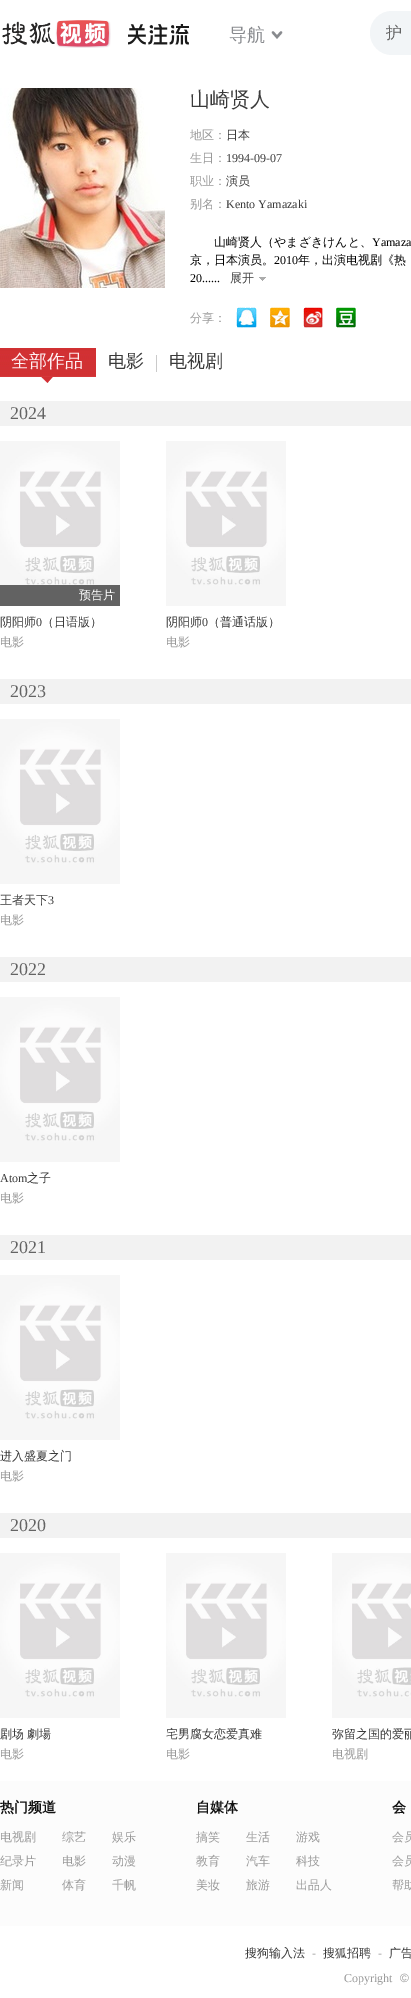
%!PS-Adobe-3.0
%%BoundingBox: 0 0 411 1998
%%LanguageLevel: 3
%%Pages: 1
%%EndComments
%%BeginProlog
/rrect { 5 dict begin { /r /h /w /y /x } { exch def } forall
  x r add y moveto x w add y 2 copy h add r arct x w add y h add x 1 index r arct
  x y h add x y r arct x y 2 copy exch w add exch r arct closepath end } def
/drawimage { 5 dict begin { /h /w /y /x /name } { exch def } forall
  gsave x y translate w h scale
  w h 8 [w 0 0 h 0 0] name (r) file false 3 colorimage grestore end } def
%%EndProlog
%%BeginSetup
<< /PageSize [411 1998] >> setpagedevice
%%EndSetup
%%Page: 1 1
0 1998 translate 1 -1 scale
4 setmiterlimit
1 setgray
0 0 411 1998 rectfill
(images/1.raw) 2 20 109 28 drawimage
(images/2.raw) 128 24 61 21 drawimage
0.533 0.541 0.557 setrgbcolor
2.4 setlinewidth
1 setlinecap
newpath 273 32.5 moveto 277 37 lineto 281 32.5 lineto stroke
0.949 0.961 0.969 setrgbcolor
370 11 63 44 22 rrect fill
(images/3.raw) 0 88 165 200 drawimage
(images/4.raw) 259 277 7 4 drawimage
(images/5.raw) 236 307 21 21 drawimage
(images/6.raw) 270 307 20 21 drawimage
(images/7.raw) 303 307 20 21 drawimage
(images/8.raw) 336 307 20 21 drawimage
(images/9.raw) 0 348 96 29 drawimage
(images/10.raw) 41 377 12 6 drawimage
0.792 setgray
156 355 1 17 rectfill
0.949 setgray
0 401 411 25 rectfill
(images/11.raw) 0 441 120 144 drawimage
0.384 setgray
0 585 120 21 rectfill
(images/12.raw) 166 441 120 165 drawimage
0.949 setgray
0 679 411 25 rectfill
(images/12.raw) 0 719 120 165 drawimage
0 957 411 25 rectfill
(images/12.raw) 0 997 120 165 drawimage
0 1235 411 25 rectfill
(images/12.raw) 0 1275 120 165 drawimage
0 1513 411 25 rectfill
(images/12.raw) 0 1553 120 165 drawimage
(images/12.raw) 166 1553 120 165 drawimage
(images/13.raw) 332 1553 79 165 drawimage
0.988 setgray
0 1781 411 145 rectfill
/WenQuanYiZenHei-Medium [18 0 0 -18 0 0] selectfont
0.533 0.541 0.557 setrgbcolor
229 41 moveto (导航) show
/WenQuanYiZenHei-Medium [16 0 0 -16 0 0] selectfont
0.392 setgray
386 38 moveto (护) show
/WenQuanYiZenHei-Medium [20 0 0 -20 0 0] selectfont
0.227 setgray
190 106 moveto (山崎贤人) show
/WenQuanYiZenHei-Medium [12 0 0 -12 0 0] selectfont
0.6 setgray
190 139 moveto (地区：) show
0.227 setgray
226 139 moveto (日本) show
0.6 setgray
190 162 moveto (生日：) show
/LiberationSerif-Regular [12 0 0 -12 0 0] selectfont
0.227 setgray
226 162 moveto (1994-09-07) show
/WenQuanYiZenHei-Medium [12 0 0 -12 0 0] selectfont
0.6 setgray
190 185 moveto (职业：) show
0.227 setgray
226 185 moveto (演员) show
0.6 setgray
190 208 moveto (别名：) show
/LiberationSerif-Regular [12 0 0 -12 0 0] selectfont
0.227 setgray
226 208 moveto (Kento Yamazaki) show
/WenQuanYiZenHei-Medium [12 0 0 -12 0 0] selectfont
0 setgray
214 246 moveto (山崎贤人（やまざきけんと、) show
/LiberationSerif-Regular [12 0 0 -12 0 0] selectfont
372 246 moveto (Yamaza) show
/WenQuanYiZenHei-Medium [12 0 0 -12 0 0] selectfont
190 264 moveto (京，日本演员。) show
/LiberationSerif-Regular [12 0 0 -12 0 0] selectfont
274 264 moveto (2010) show
/WenQuanYiZenHei-Medium [12 0 0 -12 0 0] selectfont
298 264 moveto (年，出演电视剧《热) show
/LiberationSerif-Regular [12 0 0 -12 0 0] selectfont
190 282 moveto (20......) show
/WenQuanYiZenHei-Medium [12 0 0 -12 0 0] selectfont
0.227 setgray
230 282 moveto (展开) show
0.6 setgray
190 322 moveto (分享：) show
/WenQuanYiZenHei-Medium [18 0 0 -18 0 0] selectfont
1 0.941 0.953 setrgbcolor
11 367 moveto (全部作品) show
0.227 setgray
108 367 moveto (电影) show
169 367 moveto (电视剧) show
/LiberationSerif-Regular [18 0 0 -18 0 0] selectfont
0.392 setgray
10 419 moveto (2024) show
/WenQuanYiZenHei-Medium [12 0 0 -12 0 0] selectfont
1 setgray
79 599 moveto (预告片) show
0.227 setgray
0 626 moveto (阴阳师) show
/LiberationSerif-Regular [12 0 0 -12 0 0] selectfont
36 626 moveto (0) show
/WenQuanYiZenHei-Medium [12 0 0 -12 0 0] selectfont
42 626 moveto (（日语版）) show
0.6 setgray
0 646 moveto (电影) show
0.227 setgray
166 626 moveto (阴阳师) show
/LiberationSerif-Regular [12 0 0 -12 0 0] selectfont
202 626 moveto (0) show
/WenQuanYiZenHei-Medium [12 0 0 -12 0 0] selectfont
208 626 moveto (（普通话版）) show
0.6 setgray
166 646 moveto (电影) show
/LiberationSerif-Regular [18 0 0 -18 0 0] selectfont
0.392 setgray
10 697 moveto (2023) show
/WenQuanYiZenHei-Medium [12 0 0 -12 0 0] selectfont
0.227 setgray
0 904 moveto (王者天下) show
/LiberationSerif-Regular [12 0 0 -12 0 0] selectfont
48 904 moveto (3) show
/WenQuanYiZenHei-Medium [12 0 0 -12 0 0] selectfont
0.6 setgray
0 924 moveto (电影) show
/LiberationSerif-Regular [18 0 0 -18 0 0] selectfont
0.392 setgray
10 975 moveto (2022) show
/LiberationSerif-Regular [12 0 0 -12 0 0] selectfont
0.227 setgray
0 1182 moveto (Atom) show
/WenQuanYiZenHei-Medium [12 0 0 -12 0 0] selectfont
27 1182 moveto (之子) show
0.6 setgray
0 1202 moveto (电影) show
/LiberationSerif-Regular [18 0 0 -18 0 0] selectfont
0.392 setgray
10 1253 moveto (2021) show
/WenQuanYiZenHei-Medium [12 0 0 -12 0 0] selectfont
0.227 setgray
0 1460 moveto (进入盛夏之门) show
0.6 setgray
0 1480 moveto (电影) show
/LiberationSerif-Regular [18 0 0 -18 0 0] selectfont
0.392 setgray
10 1531 moveto (2020) show
/WenQuanYiZenHei-Medium [12 0 0 -12 0 0] selectfont
0.227 setgray
0 1738 moveto -1 0 32 (剧场 劇場) widthshow
0.6 setgray
0 1758 moveto (电影) show
0.227 setgray
166 1738 moveto (宅男腐女恋爱真难) show
0.6 setgray
166 1758 moveto (电影) show
0.227 setgray
332 1738 moveto (弥留之国的爱丽) show
0.6 setgray
332 1758 moveto (电视剧) show
/WenQuanYiZenHei-Bold [14 0 0 -14 0 0] selectfont
0.067 setgray
0 1812 moveto (热门频道) show
/WenQuanYiZenHei-Medium [12 0 0 -12 0 0] selectfont
0.6 setgray
0 1841 moveto (电视剧) show
0 1865 moveto (纪录片) show
0 1889 moveto (新闻) show
62 1841 moveto (综艺) show
62 1865 moveto (电影) show
62 1889 moveto (体育) show
112 1841 moveto (娱乐) show
112 1865 moveto (动漫) show
112 1889 moveto (千帆) show
/WenQuanYiZenHei-Bold [14 0 0 -14 0 0] selectfont
0.067 setgray
196 1812 moveto (自媒体) show
/WenQuanYiZenHei-Medium [12 0 0 -12 0 0] selectfont
0.6 setgray
196 1841 moveto (搞笑) show
196 1865 moveto (教育) show
196 1889 moveto (美妆) show
246 1841 moveto (生活) show
246 1865 moveto (汽车) show
246 1889 moveto (旅游) show
296 1841 moveto (游戏) show
296 1865 moveto (科技) show
296 1889 moveto (出品人) show
/WenQuanYiZenHei-Bold [14 0 0 -14 0 0] selectfont
0.067 setgray
392 1812 moveto (会) show
/WenQuanYiZenHei-Medium [12 0 0 -12 0 0] selectfont
0.6 setgray
392 1841 moveto (会员) show
392 1865 moveto (会员) show
392 1889 moveto (帮助) show
0.227 setgray
245 1957 moveto (搜狗输入法) show
/LiberationSerif-Regular [12 0 0 -12 0 0] selectfont
0.6 setgray
312 1957 moveto (-) show
/WenQuanYiZenHei-Medium [12 0 0 -12 0 0] selectfont
0.227 setgray
323 1957 moveto (搜狐招聘) show
/LiberationSerif-Regular [12 0 0 -12 0 0] selectfont
0.6 setgray
378 1957 moveto (-) show
/WenQuanYiZenHei-Medium [12 0 0 -12 0 0] selectfont
0.227 setgray
389 1957 moveto (广告) show
/LiberationSerif-Regular [12 0 0 -12 0 0] selectfont
0.6 setgray
344 1982 moveto (Copyright) show
/LiberationSans-Regular [12 0 0 -12 0 0] selectfont
400 1982 moveto (©) show
showpage
%%EOF
